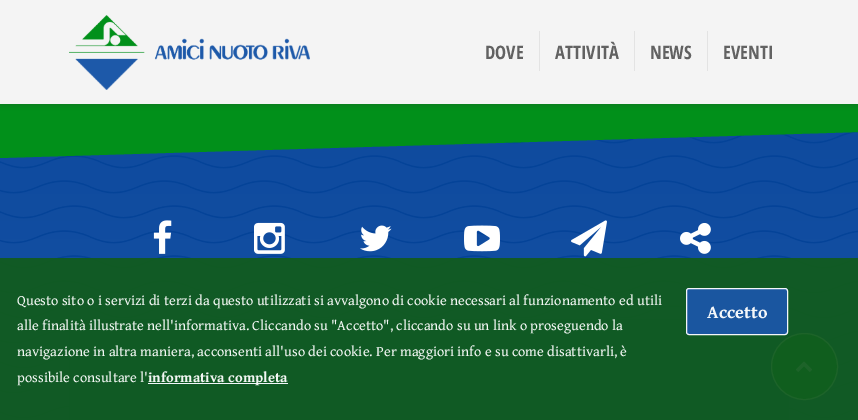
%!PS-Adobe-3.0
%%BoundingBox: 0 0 858 420
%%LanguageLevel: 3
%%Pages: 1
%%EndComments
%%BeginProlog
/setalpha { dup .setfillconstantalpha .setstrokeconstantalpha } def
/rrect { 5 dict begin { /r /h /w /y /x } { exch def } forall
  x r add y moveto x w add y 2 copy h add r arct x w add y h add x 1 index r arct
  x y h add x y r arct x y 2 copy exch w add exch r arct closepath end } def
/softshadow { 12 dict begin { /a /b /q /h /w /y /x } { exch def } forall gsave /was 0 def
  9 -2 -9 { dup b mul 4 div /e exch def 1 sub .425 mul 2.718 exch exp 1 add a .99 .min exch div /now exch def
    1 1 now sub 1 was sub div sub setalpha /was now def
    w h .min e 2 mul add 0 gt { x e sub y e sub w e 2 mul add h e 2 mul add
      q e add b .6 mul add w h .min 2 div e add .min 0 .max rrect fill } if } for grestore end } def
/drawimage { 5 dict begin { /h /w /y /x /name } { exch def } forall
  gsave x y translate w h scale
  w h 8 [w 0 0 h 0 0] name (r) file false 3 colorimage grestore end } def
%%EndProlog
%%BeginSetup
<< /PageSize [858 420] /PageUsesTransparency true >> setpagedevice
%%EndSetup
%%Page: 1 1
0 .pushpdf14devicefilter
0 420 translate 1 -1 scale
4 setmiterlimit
0.004 0.565 0.102 setrgbcolor
0 0 858 420 rectfill
0.196 setgray
0 2 858 104 0 2.5 0.2 softshadow
0.957 setgray
0 0 858 104 rectfill
(images/1.raw) 69 15 241 75 drawimage
0.89 setgray
539 31 1 40 rectfill
634 31 1 40 rectfill
707 31 1 40 rectfill
gsave newpath 0 132 moveto 858 132 lineto 858 420 lineto 0 420 lineto closepath clip newpath
<< /ShadingType 2 /ColorSpace /DeviceRGB /Coords [429 128 429 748] /Extend [true true] /Function << /FunctionType 2 /Domain [0 1] /C0 [0.055 0.29 0.62] /C1 [0.11 0.345 0.659] /N 1 >> >> shfill grestore
(images/2.raw) 0 132 858 287 drawimage
0.004 0.565 0.102 setrgbcolor
newpath 0 128 moveto 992 128 lineto 0 158 lineto closepath fill
(images/3.raw) 153 220 19 34 drawimage
(images/4.raw) 254 222 31 32 drawimage
(images/5.raw) 360 225 32 27 drawimage
(images/6.raw) 464 225 36 27 drawimage
(images/7.raw) 571 220 36 37 drawimage
(images/8.raw) 680 223 31 31 drawimage
0.016 0.263 0.596 setrgbcolor
69 319 720 101 rectfill
0.004 0.565 0.102 setrgbcolor
newpath 804.5 366.5 33 0 360 arc closepath gsave fill grestore
1 setgray
stroke
(images/9.raw) 795 361 18 11 drawimage
0.95 setalpha
0.067 0.357 0.118 setrgbcolor
0 258 858 162 rectfill
1 setalpha
0.949 0.965 0.98 setrgbcolor
148 383 140 1 rectfill
0.102 0.337 0.627 setrgbcolor
686 288 102 47 3 rrect fill
0.95 setalpha
1 setgray
686.5 288.5 101 46 2.5 rrect stroke
/OpenSansCondensed-Bold [18.5 0 0 -18.5 0 0] selectfont
1 setalpha
0.384 setgray
485 59 moveto (DOVE) show
555 59 moveto (ATTIVITÀ) show
650 59 moveto (NEWS) show
723 59 moveto (EVENTI) show
/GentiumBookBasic-Regular [14.4 0 0 -14.4 0 0] selectfont
0.953 0.969 0.957 setrgbcolor
17 305 moveto (Questo sito o i servizi di terzi da questo utilizzati si avvalgono di cookie necessari al funzionamento ed utili) show
17 330 moveto (alle finalità illustrate nell'informativa. Cliccando su "Accetto", cliccando su un link o proseguendo la) show
17 356 moveto (navigazione in altra maniera, acconsenti all'uso dei cookie. Per maggiori info e su come disattivarli, è) show
17 382 moveto (possibile consultare l') show
/GentiumBookBasic-Bold [14.4 0 0 -14.4 0 0] selectfont
148 382 moveto (informativa completa) show
/GentiumBookBasic-Bold [18 0 0 -18 0 0] selectfont
0.957 0.969 0.98 setrgbcolor
707 318 moveto (Accetto) show
.poppdf14devicefilter showpage
%%EOF
